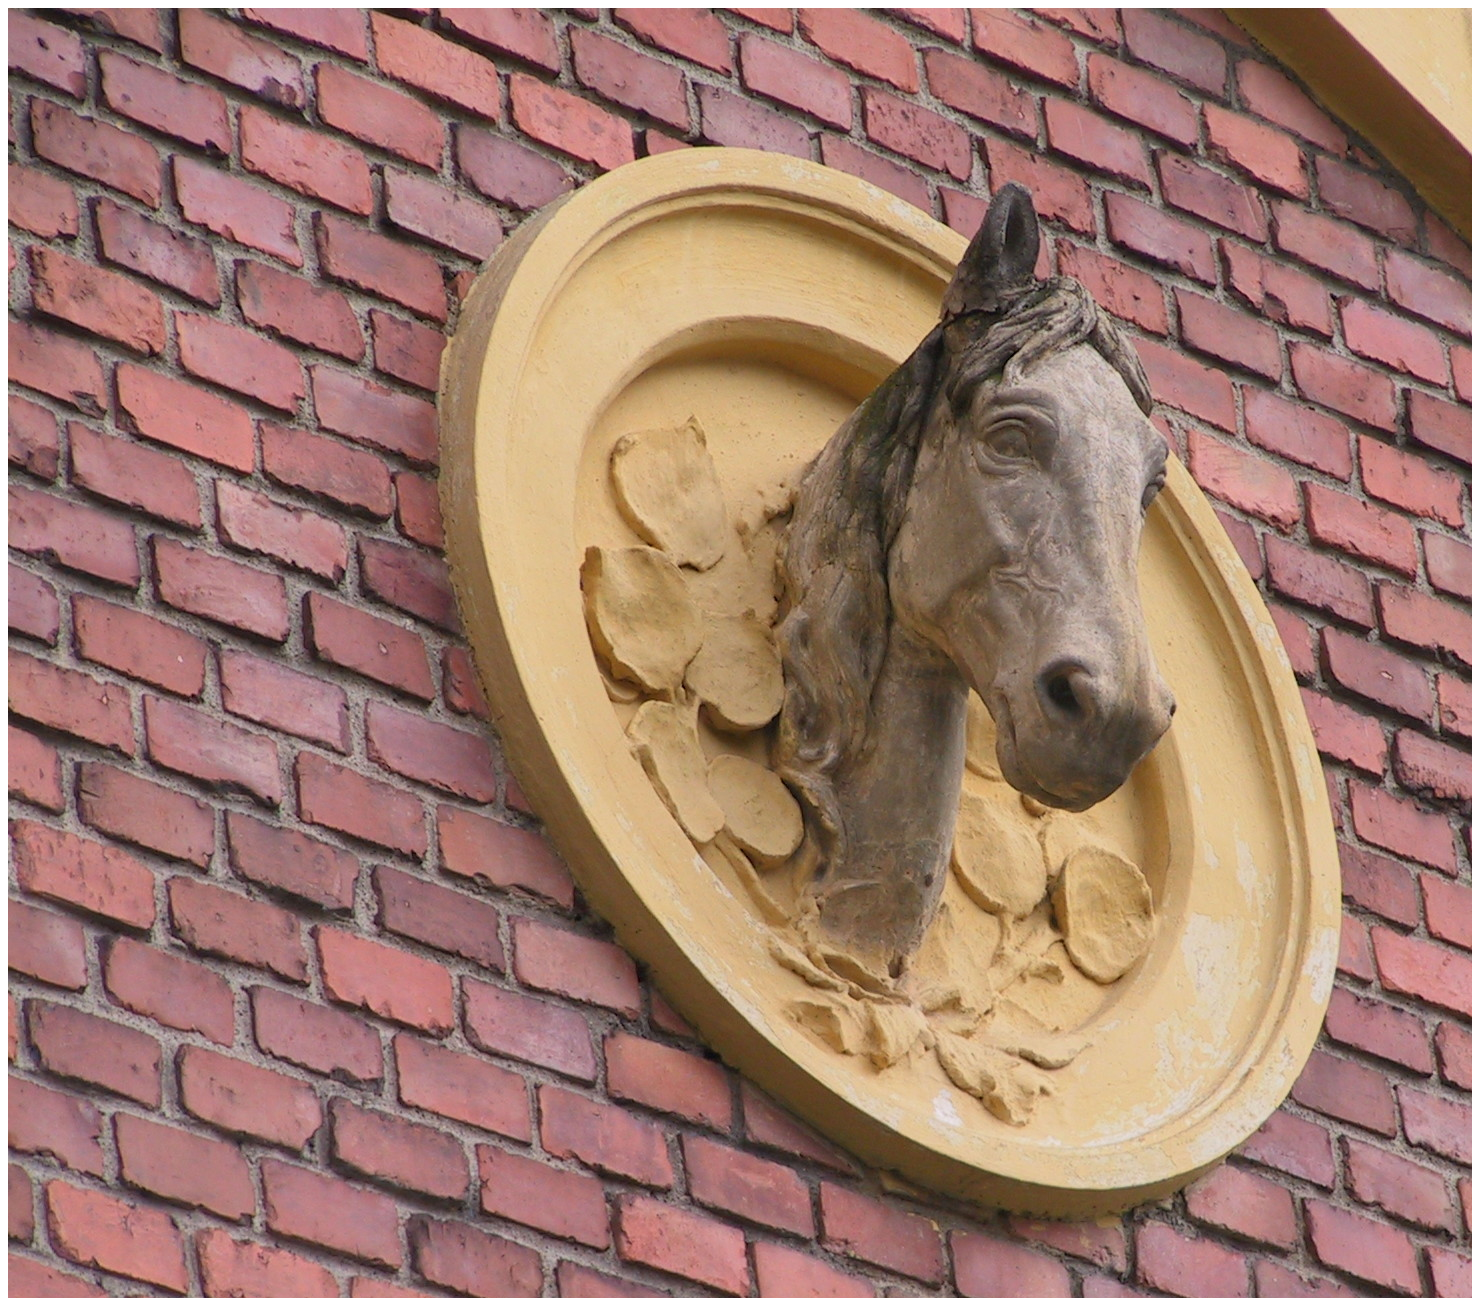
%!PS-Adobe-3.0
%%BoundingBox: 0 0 1472 1298
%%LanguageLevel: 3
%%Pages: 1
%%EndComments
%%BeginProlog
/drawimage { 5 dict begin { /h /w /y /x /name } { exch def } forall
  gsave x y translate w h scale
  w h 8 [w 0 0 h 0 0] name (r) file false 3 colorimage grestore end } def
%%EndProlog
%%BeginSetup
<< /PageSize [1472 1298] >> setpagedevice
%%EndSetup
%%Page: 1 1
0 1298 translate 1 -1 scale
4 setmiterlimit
1 setgray
0 0 1472 1298 rectfill
(images/1.raw) 8 8 1464 1290 drawimage
showpage
%%EOF
